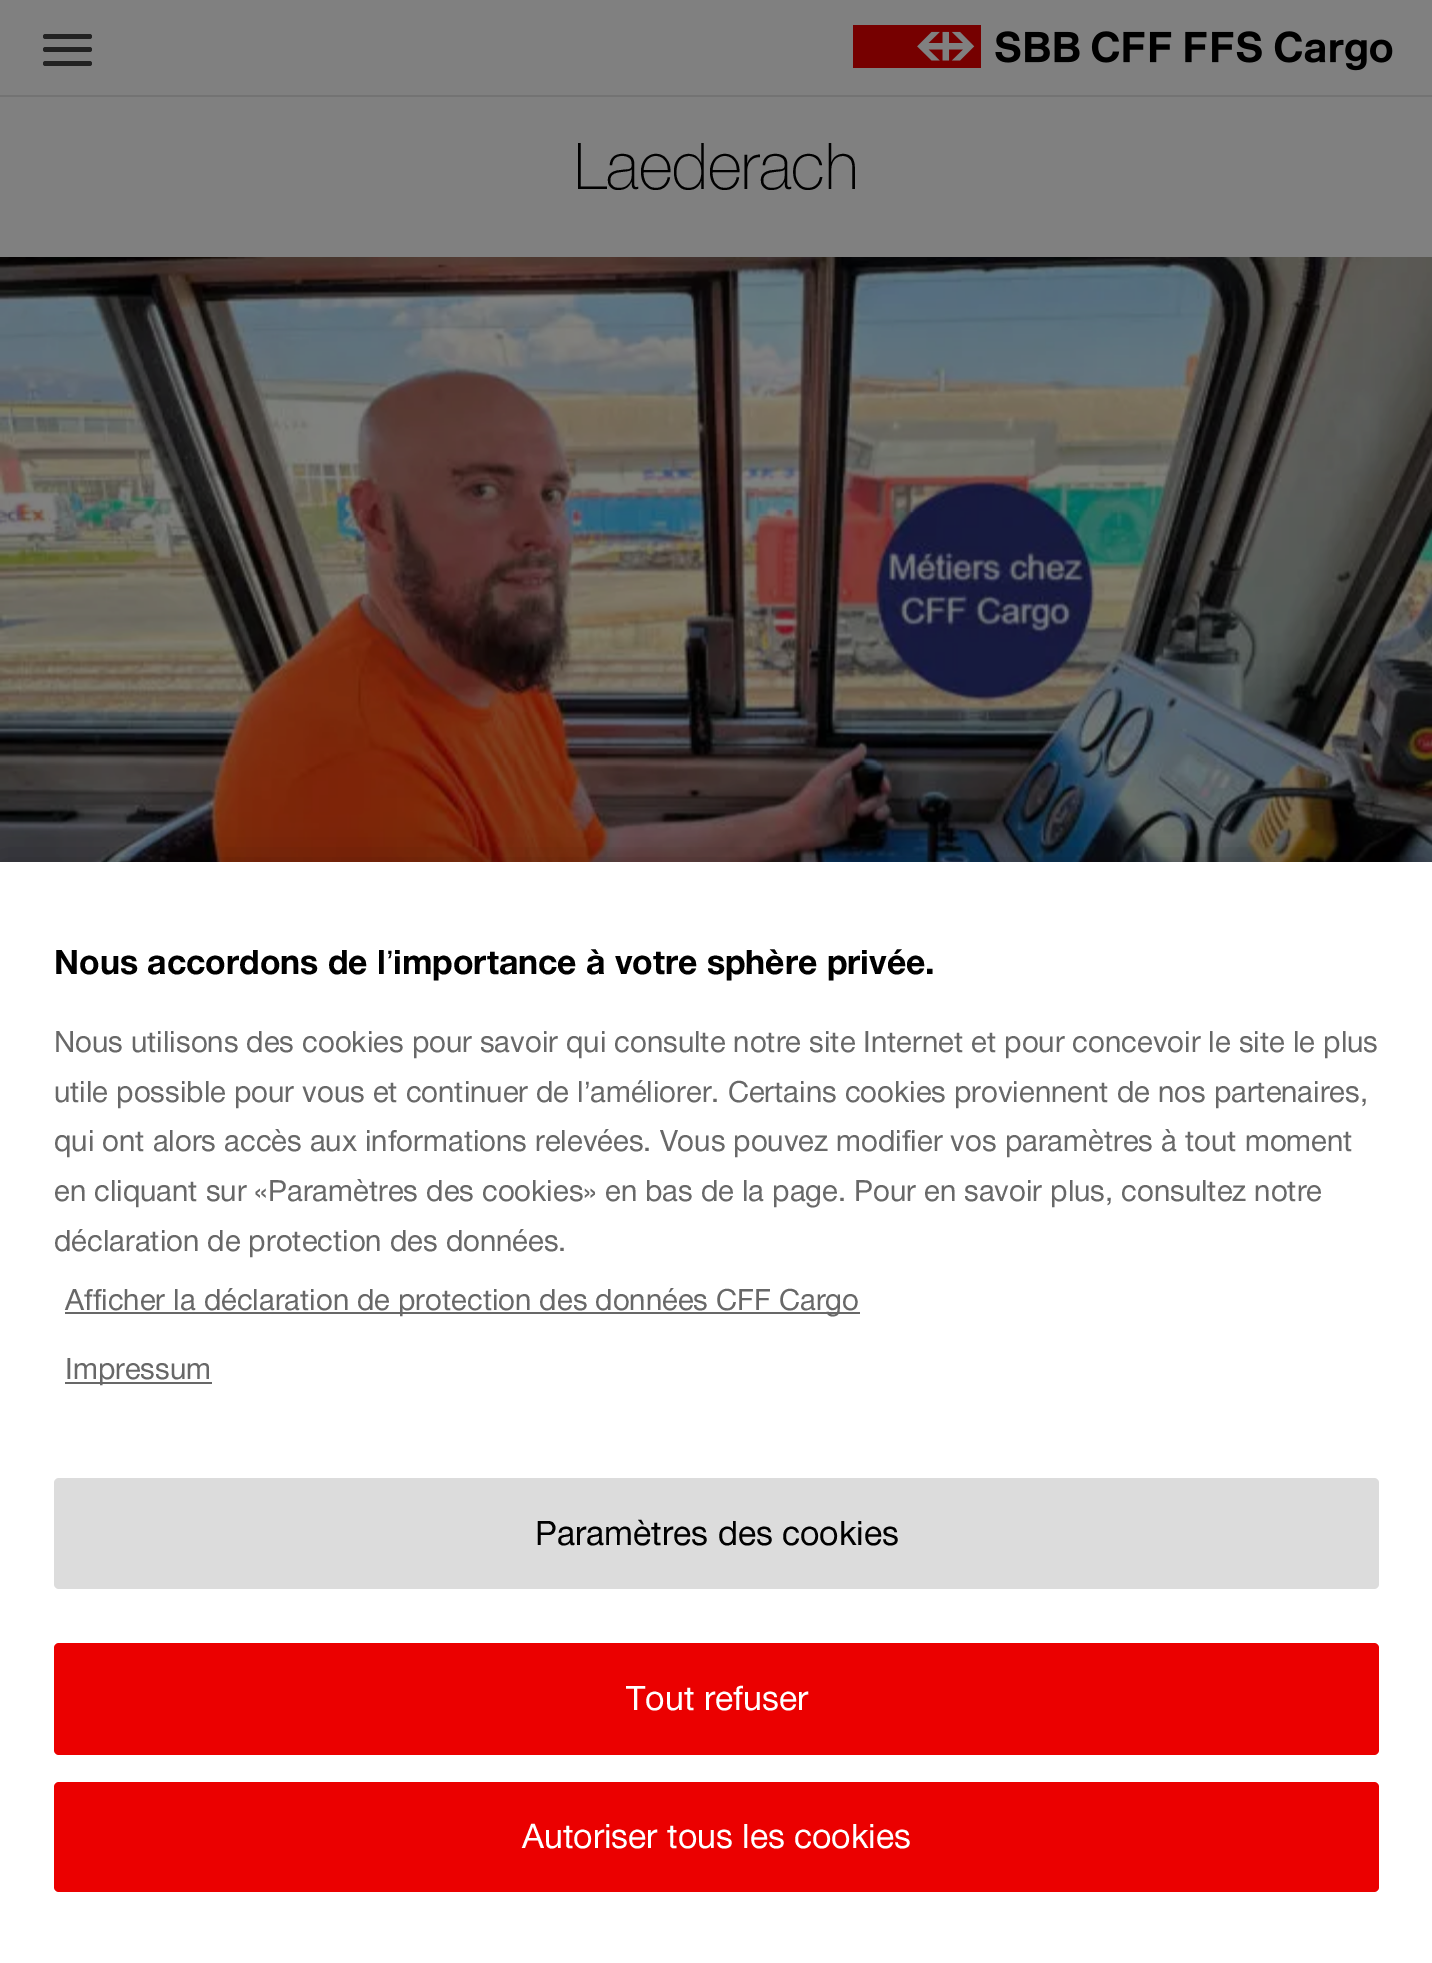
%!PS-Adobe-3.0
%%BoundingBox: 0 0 1432 1963
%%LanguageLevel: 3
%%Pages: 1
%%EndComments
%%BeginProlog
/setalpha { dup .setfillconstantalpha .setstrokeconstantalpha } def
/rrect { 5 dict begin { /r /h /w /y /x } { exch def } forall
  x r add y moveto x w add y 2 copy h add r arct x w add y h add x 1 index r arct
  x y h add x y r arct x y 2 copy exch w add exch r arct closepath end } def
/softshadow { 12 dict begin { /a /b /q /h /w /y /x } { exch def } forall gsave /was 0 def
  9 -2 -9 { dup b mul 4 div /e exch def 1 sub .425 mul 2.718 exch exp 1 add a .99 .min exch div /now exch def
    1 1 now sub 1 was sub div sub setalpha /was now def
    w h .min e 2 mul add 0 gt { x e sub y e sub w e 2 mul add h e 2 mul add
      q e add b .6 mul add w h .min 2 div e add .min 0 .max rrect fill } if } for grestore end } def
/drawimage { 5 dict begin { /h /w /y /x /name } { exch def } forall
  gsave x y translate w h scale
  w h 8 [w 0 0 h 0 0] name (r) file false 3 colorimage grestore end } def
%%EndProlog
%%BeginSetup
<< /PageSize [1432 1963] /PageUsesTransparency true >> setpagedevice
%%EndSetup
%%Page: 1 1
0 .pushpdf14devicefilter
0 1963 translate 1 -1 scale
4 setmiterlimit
0.502 setgray
0 0 1432 1963 rectfill
0.451 setgray
0 95 1432 2 rectfill
0.133 setgray
43 34 49 5 2.5 rrect fill
43 47 49 5 2.5 rrect fill
43 61 49 5 2.5 rrect fill
(images/1.raw) 853 25 540 46 drawimage
(images/2.raw) 0 257 1432 605 drawimage
0 setgray
0 862 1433 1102 0 20 0.2 softshadow
1 setgray
0 862 1432 1101 rectfill
0.408 setgray
65 1312 795 2 rectfill
65 1382 147 2 rectfill
0.863 setgray
54 1478 1325 111 5 rrect fill
0.922 0 0 setrgbcolor
54 1643 1325 112 5 rrect fill
54 1782 1325 110 5 rrect fill
/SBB-Thin [64.5 0 0 -64.5 0 0] selectfont
0 setgray
574 189 moveto (Laederach) show
/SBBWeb-Bold [33.75 0 0 -33.75 0 0] selectfont
54 974 moveto (Nous accordons de l) show
/LiberationSans-Regular [33.75 0 0 -33.75 0 0] selectfont
386 974 moveto (’) show
/SBBWeb-Bold [33.75 0 0 -33.75 0 0] selectfont
393 974 moveto (importance à votre sphère privée.) show
/SBBWeb-Regular [29.25 0 0 -29.25 0 0] selectfont
0.408 setgray
54 1052 moveto (Nous utilisons des cookies pour savoir qui consulte notre site Internet et pour concevoir le site le plus) show
54 1102 moveto (utile possible pour vous et continuer de l) show
/LiberationSans-Regular [29.25 0 0 -29.25 0 0] selectfont
584 1102 moveto (’) show
/SBBWeb-Regular [29.25 0 0 -29.25 0 0] selectfont
590 1102 moveto (améliorer. Certains cookies proviennent de nos partenaires,) show
54 1151 moveto (qui ont alors accès aux informations relevées. Vous pouvez modifier vos paramètres à tout moment) show
54 1201 moveto (en cliquant sur «Paramètres des cookies» en bas de la page. Pour en savoir plus, consultez notre) show
54 1251 moveto (déclaration de protection des données.) show
65 1310 moveto (Afficher la déclaration de protection des données CFF Cargo) show
65 1379 moveto (Impressum) show
/SBBWeb-Regular [33.75 0 0 -33.75 0 0] selectfont
0 setgray
535 1545 moveto (Paramètres des cookies) show
1 setgray
626 1710 moveto (Tout refuser) show
522 1848 moveto (Autoriser tous les cookies) show
.poppdf14devicefilter showpage
%%EOF
